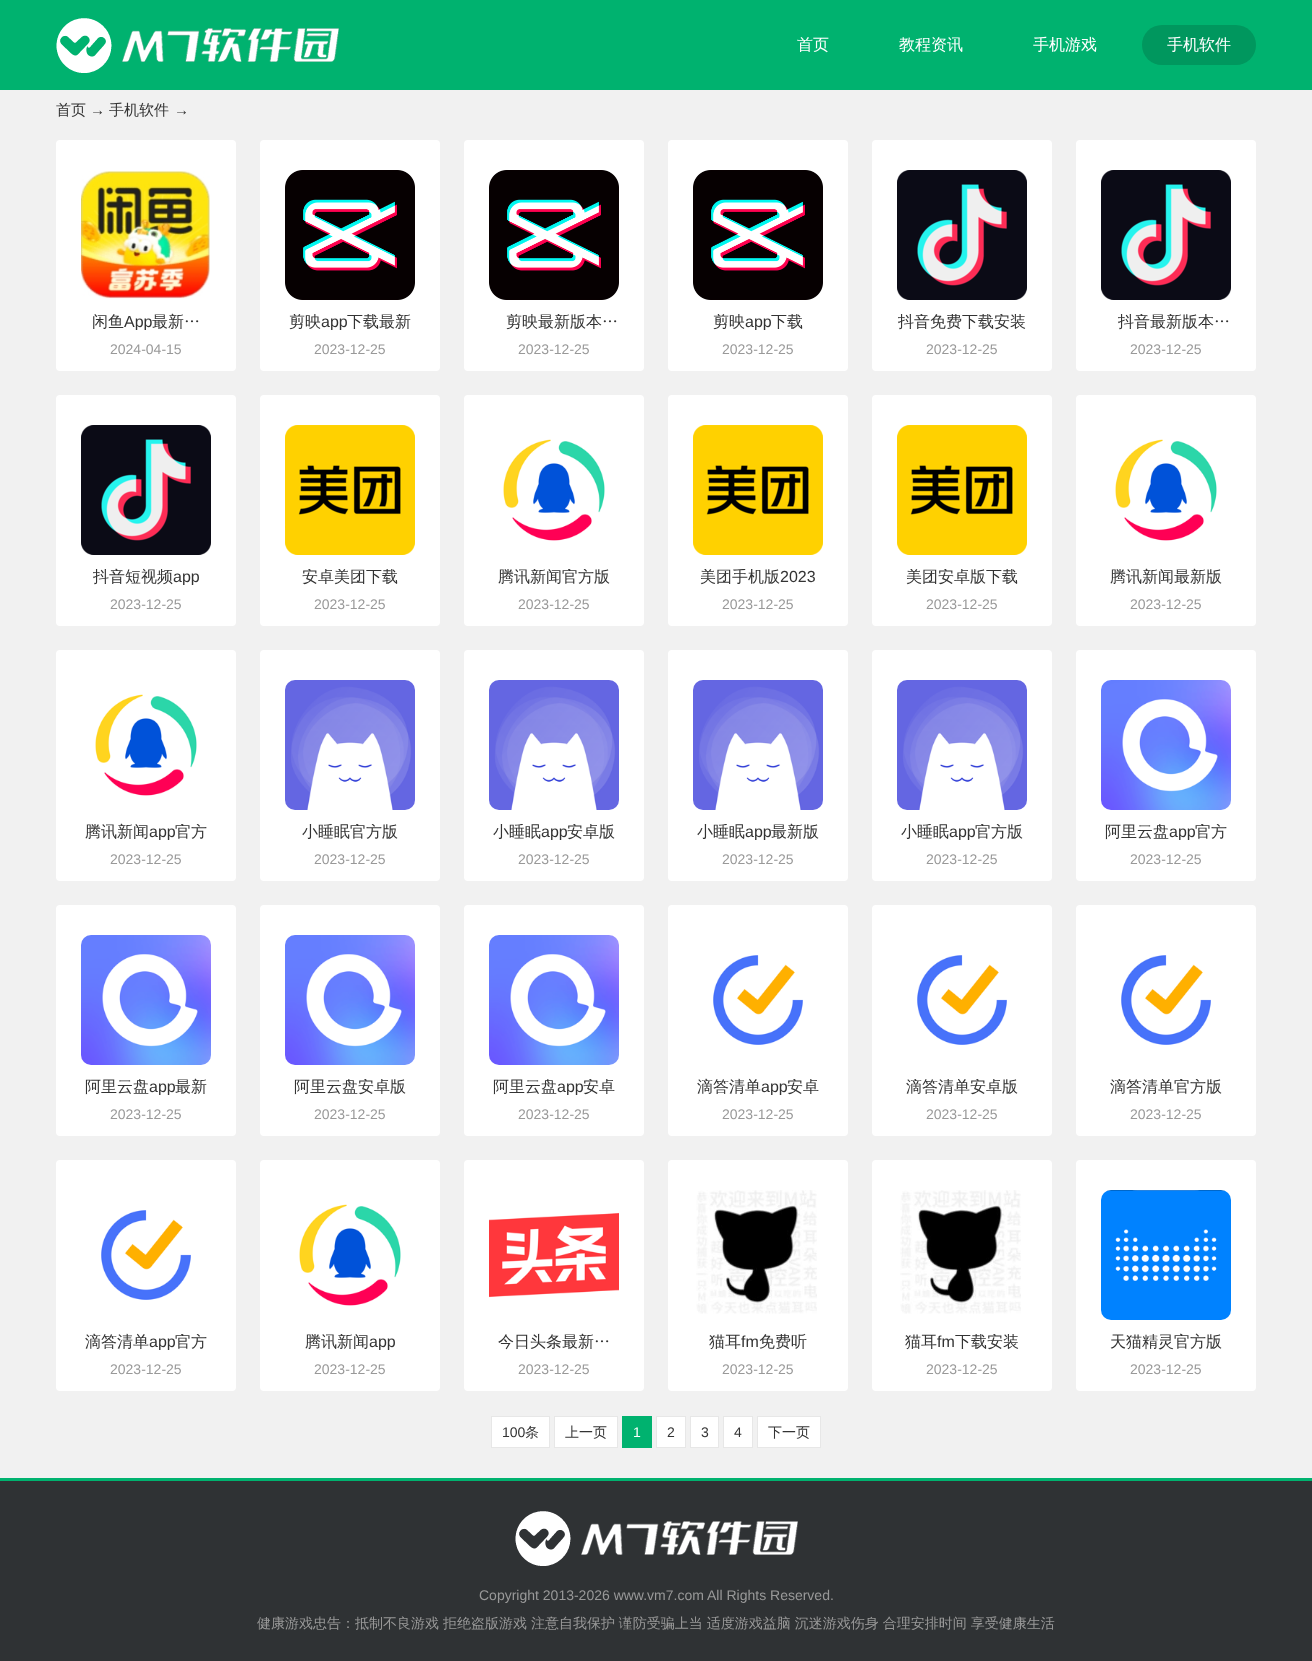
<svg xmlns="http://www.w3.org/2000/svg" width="1312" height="1661">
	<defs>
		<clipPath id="clip1"><rect x="81" y="314" width="130" height="16" /></clipPath>
		<clipPath id="clip2"><rect x="285" y="314" width="130" height="16" /></clipPath>
		<clipPath id="clip3"><rect x="489" y="314" width="130" height="16" /></clipPath>
		<clipPath id="clip4"><rect x="693" y="314" width="130" height="16" /></clipPath>
		<clipPath id="clip5"><rect x="897" y="314" width="130" height="16" /></clipPath>
		<clipPath id="clip6"><rect x="1101" y="314" width="130" height="16" /></clipPath>
		<clipPath id="clip7"><rect x="81" y="569" width="130" height="16" /></clipPath>
		<clipPath id="clip8"><rect x="285" y="569" width="130" height="16" /></clipPath>
		<clipPath id="clip9"><rect x="489" y="569" width="130" height="16" /></clipPath>
		<clipPath id="clip10"><rect x="693" y="569" width="130" height="16" /></clipPath>
		<clipPath id="clip11"><rect x="897" y="569" width="130" height="16" /></clipPath>
		<clipPath id="clip12"><rect x="81" y="824" width="130" height="16" /></clipPath>
		<clipPath id="clip13"><rect x="285" y="824" width="130" height="16" /></clipPath>
		<clipPath id="clip14"><rect x="489" y="824" width="130" height="16" /></clipPath>
		<clipPath id="clip15"><rect x="693" y="824" width="130" height="16" /></clipPath>
		<clipPath id="clip16"><rect x="897" y="824" width="130" height="16" /></clipPath>
		<clipPath id="clip17"><rect x="1101" y="824" width="130" height="16" /></clipPath>
		<clipPath id="clip18"><rect x="81" y="1079" width="130" height="16" /></clipPath>
		<clipPath id="clip19"><rect x="285" y="1079" width="130" height="16" /></clipPath>
		<clipPath id="clip20"><rect x="489" y="1079" width="130" height="16" /></clipPath>
		<clipPath id="clip21"><rect x="693" y="1079" width="130" height="16" /></clipPath>
		<clipPath id="clip22"><rect x="897" y="1079" width="130" height="16" /></clipPath>
		<clipPath id="clip23"><rect x="1101" y="1079" width="130" height="16" /></clipPath>
		<clipPath id="clip24"><rect x="81" y="1334" width="130" height="16" /></clipPath>
		<clipPath id="clip25"><rect x="285" y="1334" width="130" height="16" /></clipPath>
		<clipPath id="clip26"><rect x="897" y="1334" width="130" height="16" /></clipPath>
	</defs>
	<rect width="100%" height="100%" fill="#00B26F" />
	<image x="56" y="18" width="283" height="55" href="assets/img1.png" />
	<g font-family="WenQuanYi Zen Hei" font-size="16" font-weight="500" fill="#FFFFFF">
		<text x="797" y="50">首页</text>
		<text x="899" y="50">教程资讯</text>
		<text x="1033" y="50">手机游戏</text>
	</g>
	<rect x="1142" y="25" width="114" height="40" rx="20" fill="#00975E" />
	<text x="1167" y="50" font-family="WenQuanYi Zen Hei" font-size="16" font-weight="500" fill="#FFFFFF">手机软件</text>
	<rect x="0" y="90" width="1312" height="1388" fill="#F1F1F1" />
	<text x="56" y="115" font-family="WenQuanYi Zen Hei" font-size="15" font-weight="500" fill="#333333">首页</text>
	<text x="90" y="115" font-family="Liberation Sans" font-size="15" fill="#333333">→</text>
	<text x="109" y="115" font-family="WenQuanYi Zen Hei" font-size="15" font-weight="500" fill="#333333">手机软件</text>
	<text x="174" y="115" font-family="Liberation Sans" font-size="15" fill="#333333">→</text>
	<rect x="56" y="140" width="180" height="231" rx="4" fill="#FFFFFF" />
	<image x="81" y="171" width="129" height="128" href="assets/img2.png" />
	<text x="92" y="327" font-family="WenQuanYi Zen Hei" font-size="16" font-weight="500" fill="#333333">闲鱼</text>
	<g clip-path="url(#clip1)">
		<text x="124" y="327" font-family="Liberation Sans" font-size="16" fill="#333333">App</text>
	</g>
	<text x="152" y="327" font-family="WenQuanYi Zen Hei" font-size="16" font-weight="500" fill="#333333">最新…</text>
	<text x="110" y="354" font-family="Liberation Sans" font-size="14" fill="#999999">2024-04-15</text>
	<rect x="260" y="140" width="180" height="231" rx="4" fill="#FFFFFF" />
	<image x="285" y="170" width="130" height="130" href="assets/img3.png" />
	<g clip-path="url(#clip2)">
		<text x="289" y="327" font-family="WenQuanYi Zen Hei" font-size="16" font-weight="500" fill="#333333">剪映</text>
		<text x="321" y="327" font-family="Liberation Sans" font-size="16" fill="#333333">app</text>
		<text x="347" y="327" font-family="WenQuanYi Zen Hei" font-size="16" font-weight="500" fill="#333333">下载最新</text>
	</g>
	<text x="314" y="354" font-family="Liberation Sans" font-size="14" fill="#999999">2023-12-25</text>
	<rect x="464" y="140" width="180" height="231" rx="4" fill="#FFFFFF" />
	<image x="489" y="170" width="130" height="130" href="assets/img3.png" />
	<g clip-path="url(#clip3)">
		<text x="506" y="327" font-family="WenQuanYi Zen Hei" font-size="16" font-weight="500" fill="#333333">剪映最新版本…</text>
	</g>
	<text x="518" y="354" font-family="Liberation Sans" font-size="14" fill="#999999">2023-12-25</text>
	<rect x="668" y="140" width="180" height="231" rx="4" fill="#FFFFFF" />
	<image x="693" y="170" width="130" height="130" href="assets/img3.png" />
	<g clip-path="url(#clip4)">
		<text x="713" y="327" font-family="WenQuanYi Zen Hei" font-size="16" font-weight="500" fill="#333333">剪映</text>
		<text x="745" y="327" font-family="Liberation Sans" font-size="16" fill="#333333">app</text>
		<text x="771" y="327" font-family="WenQuanYi Zen Hei" font-size="16" font-weight="500" fill="#333333">下载</text>
	</g>
	<text x="722" y="354" font-family="Liberation Sans" font-size="14" fill="#999999">2023-12-25</text>
	<rect x="872" y="140" width="180" height="231" rx="4" fill="#FFFFFF" />
	<image x="897" y="170" width="130" height="130" href="assets/img4.png" />
	<g clip-path="url(#clip5)">
		<text x="898" y="327" font-family="WenQuanYi Zen Hei" font-size="16" font-weight="500" fill="#333333">抖音免费下载安装</text>
	</g>
	<text x="926" y="354" font-family="Liberation Sans" font-size="14" fill="#999999">2023-12-25</text>
	<rect x="1076" y="140" width="180" height="231" rx="4" fill="#FFFFFF" />
	<image x="1101" y="170" width="130" height="130" href="assets/img5.png" />
	<g clip-path="url(#clip6)">
		<text x="1118" y="327" font-family="WenQuanYi Zen Hei" font-size="16" font-weight="500" fill="#333333">抖音最新版本…</text>
	</g>
	<text x="1130" y="354" font-family="Liberation Sans" font-size="14" fill="#999999">2023-12-25</text>
	<rect x="56" y="395" width="180" height="231" rx="4" fill="#FFFFFF" />
	<image x="81" y="425" width="130" height="130" href="assets/img4.png" />
	<text x="93" y="582" font-family="WenQuanYi Zen Hei" font-size="16" font-weight="500" fill="#333333">抖音短视频</text>
	<g clip-path="url(#clip7)">
		<text x="173" y="582" font-family="Liberation Sans" font-size="16" fill="#333333">app</text>
	</g>
	<text x="110" y="609" font-family="Liberation Sans" font-size="14" fill="#999999">2023-12-25</text>
	<rect x="260" y="395" width="180" height="231" rx="4" fill="#FFFFFF" />
	<image x="285" y="425" width="130" height="130" href="assets/img6.png" />
	<g clip-path="url(#clip8)">
		<text x="302" y="582" font-family="WenQuanYi Zen Hei" font-size="16" font-weight="500" fill="#333333">安卓美团下载</text>
	</g>
	<text x="314" y="609" font-family="Liberation Sans" font-size="14" fill="#999999">2023-12-25</text>
	<rect x="464" y="395" width="180" height="231" rx="4" fill="#FFFFFF" />
	<image x="503" y="439" width="102" height="102" href="assets/img7.png" />
	<g clip-path="url(#clip9)">
		<text x="498" y="582" font-family="WenQuanYi Zen Hei" font-size="16" font-weight="500" fill="#333333">腾讯新闻官方版</text>
	</g>
	<text x="518" y="609" font-family="Liberation Sans" font-size="14" fill="#999999">2023-12-25</text>
	<rect x="668" y="395" width="180" height="231" rx="4" fill="#FFFFFF" />
	<image x="693" y="425" width="130" height="130" href="assets/img8.png" />
	<g clip-path="url(#clip10)">
		<text x="700" y="582" font-family="WenQuanYi Zen Hei" font-size="16" font-weight="500" fill="#333333">美团手机版</text>
	</g>
	<text x="780" y="582" font-family="Liberation Sans" font-size="16" fill="#333333">2023</text>
	<text x="722" y="609" font-family="Liberation Sans" font-size="14" fill="#999999">2023-12-25</text>
	<rect x="872" y="395" width="180" height="231" rx="4" fill="#FFFFFF" />
	<image x="897" y="425" width="130" height="130" href="assets/img8.png" />
	<g clip-path="url(#clip11)">
		<text x="906" y="582" font-family="WenQuanYi Zen Hei" font-size="16" font-weight="500" fill="#333333">美团安卓版下载</text>
	</g>
	<text x="926" y="609" font-family="Liberation Sans" font-size="14" fill="#999999">2023-12-25</text>
	<rect x="1076" y="395" width="180" height="231" rx="4" fill="#FFFFFF" />
	<image x="1115" y="439" width="102" height="102" href="assets/img9.png" />
	<text x="1110" y="582" font-family="WenQuanYi Zen Hei" font-size="16" font-weight="500" fill="#333333">腾讯新闻最新版</text>
	<text x="1130" y="609" font-family="Liberation Sans" font-size="14" fill="#999999">2023-12-25</text>
	<rect x="56" y="650" width="180" height="231" rx="4" fill="#FFFFFF" />
	<image x="95" y="694" width="102" height="102" href="assets/img10.png" />
	<text x="85" y="837" font-family="WenQuanYi Zen Hei" font-size="16" font-weight="500" fill="#333333">腾讯新闻</text>
	<g clip-path="url(#clip12)">
		<text x="149" y="837" font-family="Liberation Sans" font-size="16" fill="#333333">app</text>
		<text x="175" y="837" font-family="WenQuanYi Zen Hei" font-size="16" font-weight="500" fill="#333333">官方</text>
	</g>
	<text x="110" y="864" font-family="Liberation Sans" font-size="14" fill="#999999">2023-12-25</text>
	<rect x="260" y="650" width="180" height="231" rx="4" fill="#FFFFFF" />
	<image x="285" y="680" width="130" height="130" href="assets/img11.png" />
	<g clip-path="url(#clip13)">
		<text x="302" y="837" font-family="WenQuanYi Zen Hei" font-size="16" font-weight="500" fill="#333333">小睡眠官方版</text>
	</g>
	<text x="314" y="864" font-family="Liberation Sans" font-size="14" fill="#999999">2023-12-25</text>
	<rect x="464" y="650" width="180" height="231" rx="4" fill="#FFFFFF" />
	<image x="489" y="680" width="130" height="130" href="assets/img11.png" />
	<g clip-path="url(#clip14)">
		<text x="493" y="837" font-family="WenQuanYi Zen Hei" font-size="16" font-weight="500" fill="#333333">小睡眠</text>
		<text x="541" y="837" font-family="Liberation Sans" font-size="16" fill="#333333">app</text>
		<text x="567" y="837" font-family="WenQuanYi Zen Hei" font-size="16" font-weight="500" fill="#333333">安卓版</text>
	</g>
	<text x="518" y="864" font-family="Liberation Sans" font-size="14" fill="#999999">2023-12-25</text>
	<rect x="668" y="650" width="180" height="231" rx="4" fill="#FFFFFF" />
	<image x="693" y="680" width="130" height="130" href="assets/img12.png" />
	<g clip-path="url(#clip15)">
		<text x="697" y="837" font-family="WenQuanYi Zen Hei" font-size="16" font-weight="500" fill="#333333">小睡眠</text>
		<text x="745" y="837" font-family="Liberation Sans" font-size="16" fill="#333333">app</text>
	</g>
	<text x="771" y="837" font-family="WenQuanYi Zen Hei" font-size="16" font-weight="500" fill="#333333">最新版</text>
	<text x="722" y="864" font-family="Liberation Sans" font-size="14" fill="#999999">2023-12-25</text>
	<rect x="872" y="650" width="180" height="231" rx="4" fill="#FFFFFF" />
	<image x="897" y="680" width="130" height="130" href="assets/img13.png" />
	<g clip-path="url(#clip16)">
		<text x="901" y="837" font-family="WenQuanYi Zen Hei" font-size="16" font-weight="500" fill="#333333">小睡眠</text>
		<text x="949" y="837" font-family="Liberation Sans" font-size="16" fill="#333333">app</text>
		<text x="975" y="837" font-family="WenQuanYi Zen Hei" font-size="16" font-weight="500" fill="#333333">官方版</text>
	</g>
	<text x="926" y="864" font-family="Liberation Sans" font-size="14" fill="#999999">2023-12-25</text>
	<rect x="1076" y="650" width="180" height="231" rx="4" fill="#FFFFFF" />
	<image x="1101" y="680" width="130" height="130" href="assets/img14.png" />
	<text x="1105" y="837" font-family="WenQuanYi Zen Hei" font-size="16" font-weight="500" fill="#333333">阿里云盘</text>
	<g clip-path="url(#clip17)">
		<text x="1169" y="837" font-family="Liberation Sans" font-size="16" fill="#333333">app</text>
		<text x="1195" y="837" font-family="WenQuanYi Zen Hei" font-size="16" font-weight="500" fill="#333333">官方</text>
	</g>
	<text x="1130" y="864" font-family="Liberation Sans" font-size="14" fill="#999999">2023-12-25</text>
	<rect x="56" y="905" width="180" height="231" rx="4" fill="#FFFFFF" />
	<image x="81" y="935" width="130" height="130" href="assets/img15.png" />
	<text x="85" y="1092" font-family="WenQuanYi Zen Hei" font-size="16" font-weight="500" fill="#333333">阿里云盘</text>
	<g clip-path="url(#clip18)">
		<text x="149" y="1092" font-family="Liberation Sans" font-size="16" fill="#333333">app</text>
	</g>
	<text x="175" y="1092" font-family="WenQuanYi Zen Hei" font-size="16" font-weight="500" fill="#333333">最新</text>
	<text x="110" y="1119" font-family="Liberation Sans" font-size="14" fill="#999999">2023-12-25</text>
	<rect x="260" y="905" width="180" height="231" rx="4" fill="#FFFFFF" />
	<image x="285" y="935" width="130" height="130" href="assets/img16.png" />
	<g clip-path="url(#clip19)">
		<text x="294" y="1092" font-family="WenQuanYi Zen Hei" font-size="16" font-weight="500" fill="#333333">阿里云盘安卓版</text>
	</g>
	<text x="314" y="1119" font-family="Liberation Sans" font-size="14" fill="#999999">2023-12-25</text>
	<rect x="464" y="905" width="180" height="231" rx="4" fill="#FFFFFF" />
	<image x="489" y="935" width="130" height="130" href="assets/img16.png" />
	<text x="493" y="1092" font-family="WenQuanYi Zen Hei" font-size="16" font-weight="500" fill="#333333">阿里云盘</text>
	<g clip-path="url(#clip20)">
		<text x="557" y="1092" font-family="Liberation Sans" font-size="16" fill="#333333">app</text>
		<text x="583" y="1092" font-family="WenQuanYi Zen Hei" font-size="16" font-weight="500" fill="#333333">安卓</text>
	</g>
	<text x="518" y="1119" font-family="Liberation Sans" font-size="14" fill="#999999">2023-12-25</text>
	<rect x="668" y="905" width="180" height="231" rx="4" fill="#FFFFFF" />
	<image x="713" y="955" width="90" height="90" href="assets/img17.png" />
	<text x="697" y="1092" font-family="WenQuanYi Zen Hei" font-size="16" font-weight="500" fill="#333333">滴答清单</text>
	<g clip-path="url(#clip21)">
		<text x="761" y="1092" font-family="Liberation Sans" font-size="16" fill="#333333">app</text>
		<text x="787" y="1092" font-family="WenQuanYi Zen Hei" font-size="16" font-weight="500" fill="#333333">安卓</text>
	</g>
	<text x="722" y="1119" font-family="Liberation Sans" font-size="14" fill="#999999">2023-12-25</text>
	<rect x="872" y="905" width="180" height="231" rx="4" fill="#FFFFFF" />
	<image x="917" y="955" width="90" height="90" href="assets/img17.png" />
	<g clip-path="url(#clip22)">
		<text x="906" y="1092" font-family="WenQuanYi Zen Hei" font-size="16" font-weight="500" fill="#333333">滴答清单安卓版</text>
	</g>
	<text x="926" y="1119" font-family="Liberation Sans" font-size="14" fill="#999999">2023-12-25</text>
	<rect x="1076" y="905" width="180" height="231" rx="4" fill="#FFFFFF" />
	<image x="1121" y="955" width="90" height="90" href="assets/img17.png" />
	<g clip-path="url(#clip23)">
		<text x="1110" y="1092" font-family="WenQuanYi Zen Hei" font-size="16" font-weight="500" fill="#333333">滴答清单官方版</text>
	</g>
	<text x="1130" y="1119" font-family="Liberation Sans" font-size="14" fill="#999999">2023-12-25</text>
	<rect x="56" y="1160" width="180" height="231" rx="4" fill="#FFFFFF" />
	<image x="101" y="1210" width="90" height="90" href="assets/img17.png" />
	<text x="85" y="1347" font-family="WenQuanYi Zen Hei" font-size="16" font-weight="500" fill="#333333">滴答清单</text>
	<g clip-path="url(#clip24)">
		<text x="149" y="1347" font-family="Liberation Sans" font-size="16" fill="#333333">app</text>
		<text x="175" y="1347" font-family="WenQuanYi Zen Hei" font-size="16" font-weight="500" fill="#333333">官方</text>
	</g>
	<text x="110" y="1374" font-family="Liberation Sans" font-size="14" fill="#999999">2023-12-25</text>
	<rect x="260" y="1160" width="180" height="231" rx="4" fill="#FFFFFF" />
	<image x="299" y="1204" width="102" height="102" href="assets/img18.png" />
	<g clip-path="url(#clip25)">
		<text x="305" y="1347" font-family="WenQuanYi Zen Hei" font-size="16" font-weight="500" fill="#333333">腾讯新闻</text>
		<text x="369" y="1347" font-family="Liberation Sans" font-size="16" fill="#333333">app</text>
	</g>
	<text x="314" y="1374" font-family="Liberation Sans" font-size="14" fill="#999999">2023-12-25</text>
	<rect x="464" y="1160" width="180" height="231" rx="4" fill="#FFFFFF" />
	<image x="489" y="1212" width="130" height="86" href="assets/img19.png" />
	<text x="498" y="1347" font-family="WenQuanYi Zen Hei" font-size="16" font-weight="500" fill="#333333">今日头条最新…</text>
	<text x="518" y="1374" font-family="Liberation Sans" font-size="14" fill="#999999">2023-12-25</text>
	<rect x="668" y="1160" width="180" height="231" rx="4" fill="#FFFFFF" />
	<image x="696" y="1190" width="121" height="124" href="assets/img20.png" />
	<text x="709" y="1347" font-family="WenQuanYi Zen Hei" font-size="16" font-weight="500" fill="#333333">猫耳</text>
	<text x="741" y="1347" font-family="Liberation Sans" font-size="16" fill="#333333">fm</text>
	<text x="759" y="1347" font-family="WenQuanYi Zen Hei" font-size="16" font-weight="500" fill="#333333">免费听</text>
	<text x="722" y="1374" font-family="Liberation Sans" font-size="14" fill="#999999">2023-12-25</text>
	<rect x="872" y="1160" width="180" height="231" rx="4" fill="#FFFFFF" />
	<image x="900" y="1190" width="121" height="124" href="assets/img21.png" />
	<text x="905" y="1347" font-family="WenQuanYi Zen Hei" font-size="16" font-weight="500" fill="#333333">猫耳</text>
	<text x="937" y="1347" font-family="Liberation Sans" font-size="16" fill="#333333">fm</text>
	<g clip-path="url(#clip26)">
		<text x="955" y="1347" font-family="WenQuanYi Zen Hei" font-size="16" font-weight="500" fill="#333333">下载安装</text>
	</g>
	<text x="926" y="1374" font-family="Liberation Sans" font-size="14" fill="#999999">2023-12-25</text>
	<rect x="1076" y="1160" width="180" height="231" rx="4" fill="#FFFFFF" />
	<image x="1101" y="1190" width="130" height="130" href="assets/img22.png" />
	<text x="1110" y="1347" font-family="WenQuanYi Zen Hei" font-size="16" font-weight="500" fill="#333333">天猫精灵官方版</text>
	<text x="1130" y="1374" font-family="Liberation Sans" font-size="14" fill="#999999">2023-12-25</text>
	<rect x="491.5" y="1416.5" width="58" height="31" fill="#FFFFFF" stroke="#E7E7E7" />
	<text x="502" y="1437" font-family="Liberation Sans" font-size="14" fill="#333333">100</text>
	<text x="525" y="1437" font-family="WenQuanYi Zen Hei" font-size="14" font-weight="500" fill="#333333">条</text>
	<rect x="554.5" y="1416.5" width="63" height="31" fill="#FFFFFF" stroke="#E7E7E7" />
	<text x="565" y="1437" font-family="WenQuanYi Zen Hei" font-size="14" font-weight="500" fill="#333333">上一页</text>
	<rect x="622" y="1416" width="30" height="32" fill="#00B26F" />
	<text x="633" y="1437" font-family="Liberation Sans" font-size="14" fill="#FFFFFF">1</text>
	<rect x="656.5" y="1416.5" width="29" height="31" fill="#FFFFFF" stroke="#E7E7E7" />
	<text x="667" y="1437" font-family="Liberation Sans" font-size="14" fill="#333333">2</text>
	<rect x="690.5" y="1416.5" width="28" height="31" fill="#FFFFFF" stroke="#E7E7E7" />
	<text x="701" y="1437" font-family="Liberation Sans" font-size="14" fill="#333333">3</text>
	<rect x="723.5" y="1416.5" width="29" height="31" fill="#FFFFFF" stroke="#E7E7E7" />
	<text x="734" y="1437" font-family="Liberation Sans" font-size="14" fill="#333333">4</text>
	<rect x="757.5" y="1416.5" width="63" height="31" fill="#FFFFFF" stroke="#E7E7E7" />
	<text x="768" y="1437" font-family="WenQuanYi Zen Hei" font-size="14" font-weight="500" fill="#333333">下一页</text>
	<rect x="0" y="1481" width="1312" height="180" fill="#2F3234" />
	<image x="515" y="1511" width="283" height="55" href="assets/img23.png" />
	<text x="479" y="1600" font-family="Liberation Sans" font-size="14" fill="#999999">Copyright 2013-2026 www.vm7.com All Rights Reserved.</text>
	<text x="257" y="1628" word-spacing="-0.25" font-family="WenQuanYi Zen Hei" font-size="14" font-weight="500" fill="#999999">健康游戏忠告：抵制不良游戏 拒绝盗版游戏 注意自我保护 谨防受骗上当 适度游戏益脑 沉迷游戏伤身 合理安排时间 享受健康生活</text>
</svg>
